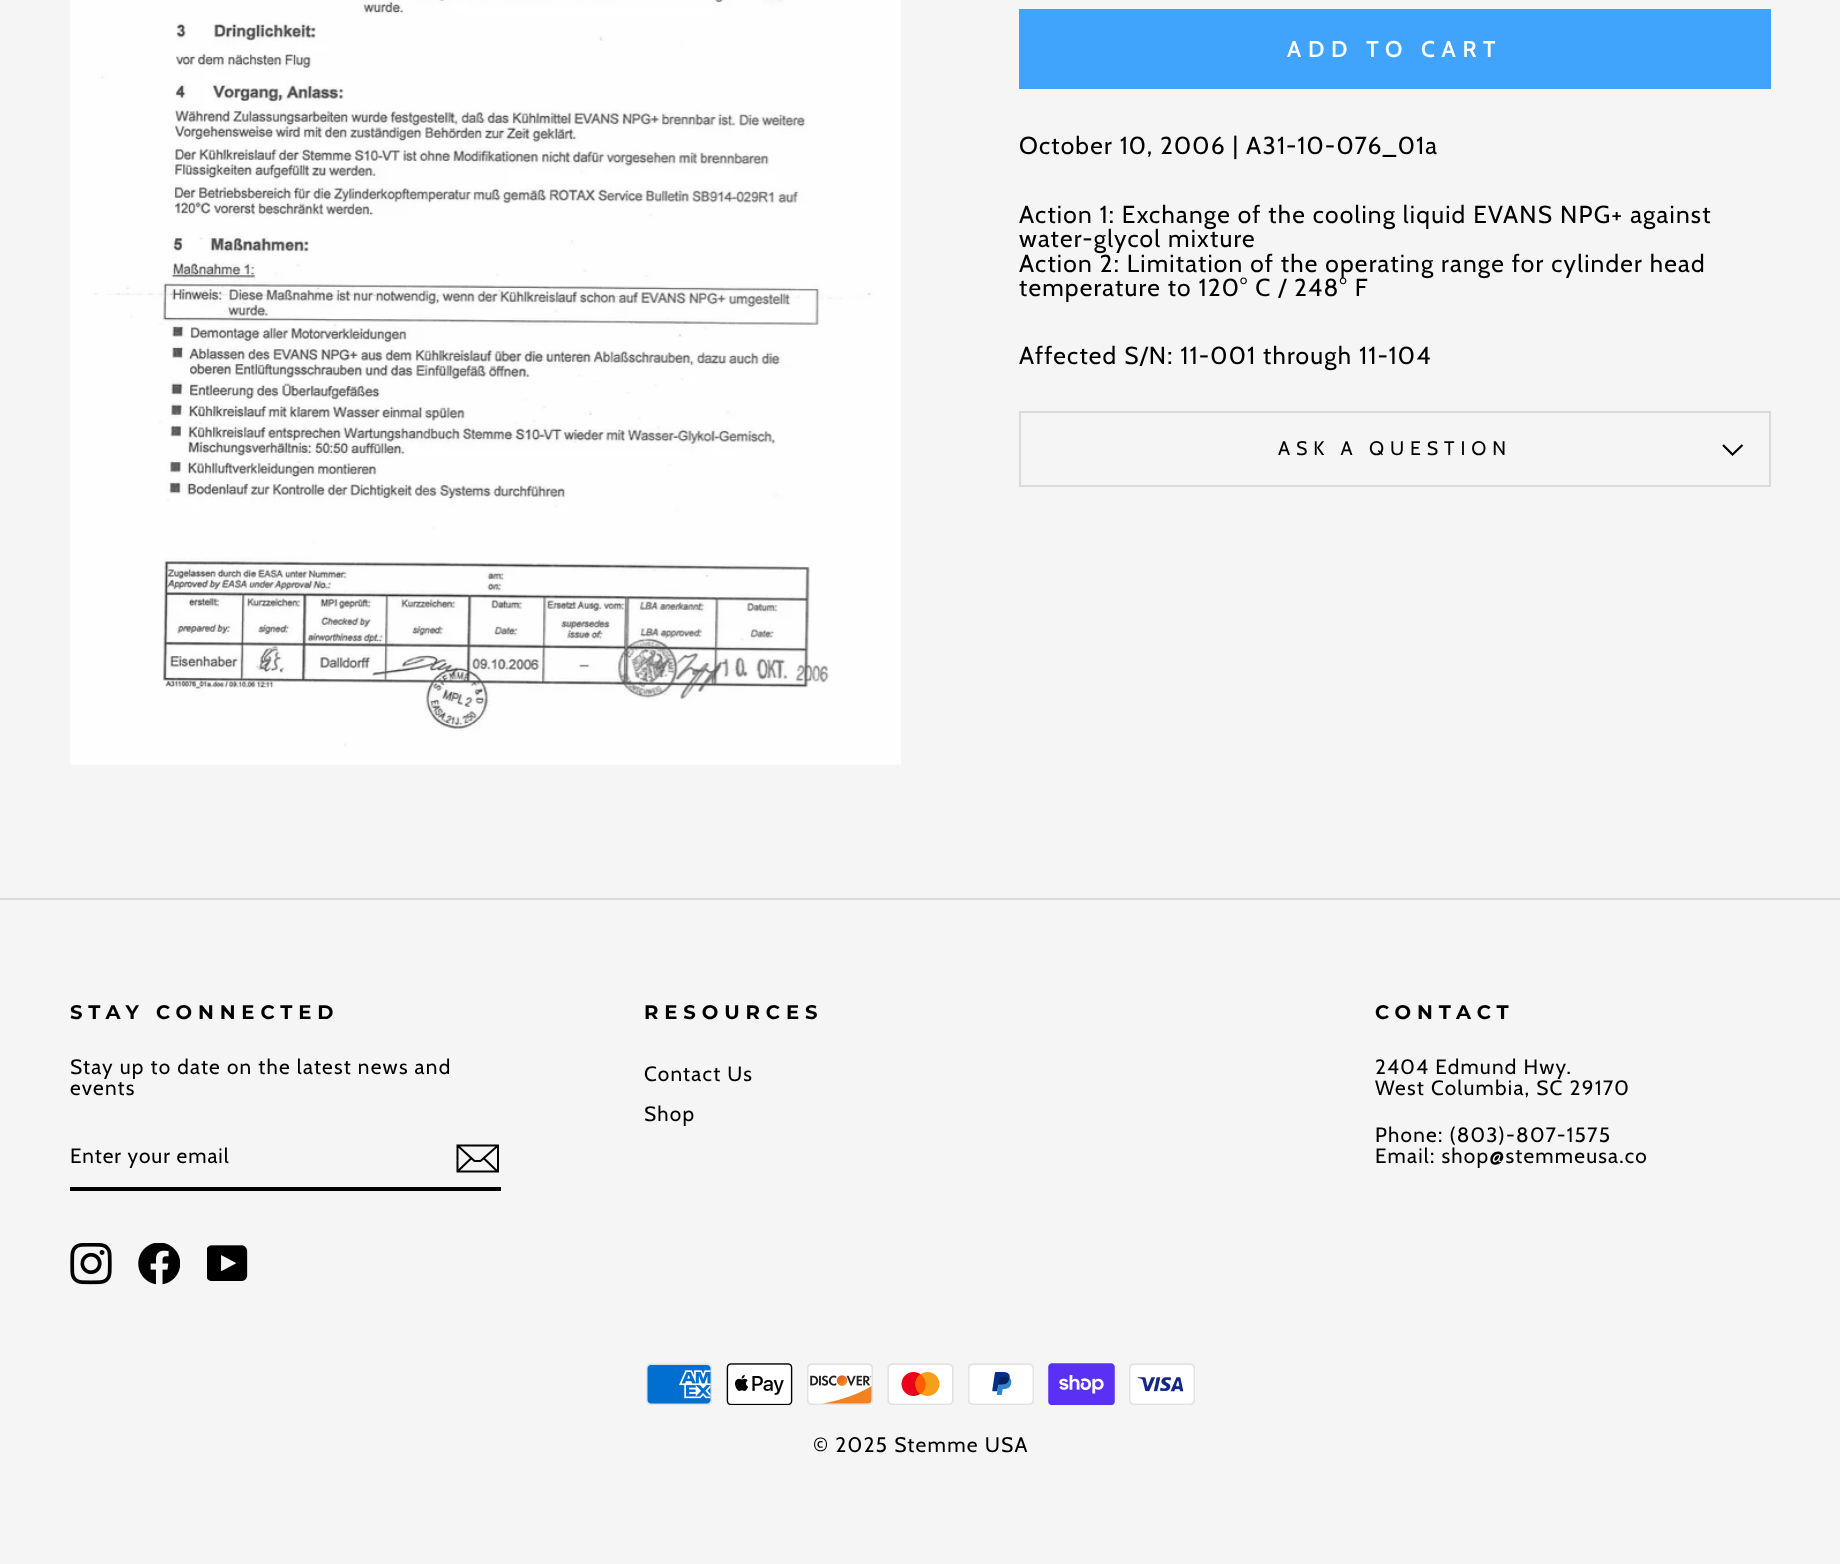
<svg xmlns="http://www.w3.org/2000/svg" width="1840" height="1564">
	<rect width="100%" height="100%" fill="#F5F5F5" />
	<image x="70" y="0" width="831" height="765" href="assets/img1.png" />
	<rect x="1019" y="9" width="752" height="80" fill="#41A4FC" />
	<text x="1287" y="57" font-family="Cabin" font-size="22.75" font-weight="600" letter-spacing="6.75" fill="#FFFFFF">ADD TO CART</text>
	<g font-family="Cabin" font-size="24.5" letter-spacing="1.22" fill="#000000">
		<text x="1019" y="154">October 10, 2006 | A31-10-076_01a</text>
		<text x="1019" y="223">Action 1: Exchange of the cooling liquid EVANS NPG+ against</text>
		<text x="1019" y="247">water-glycol mixture</text>
		<text x="1019" y="272">Action 2: Limitation of the operating range for cylinder head</text>
		<text x="1019" y="296">temperature to 120° C / 248° F</text>
		<text x="1019" y="364">Affected S/N: 11-001 through 11-104</text>
	</g>
	<rect x="1019" y="485" width="752" height="2" fill="#DADADA" />
	<rect x="1019" y="411" width="752" height="2" fill="#DADADA" />
	<rect x="1769" y="411" width="2" height="74" fill="#DADADA" />
	<rect x="1019" y="411" width="2" height="74" fill="#DADADA" />
	<text x="1278" y="455" font-family="Cabin" font-size="19.6" letter-spacing="5.9" fill="#000000">ASK A QUESTION</text>
	<path d="M1723 445L1732.5 454.5L1742.5 445" fill="none" stroke="#000000" stroke-width="2.2" />
	<rect x="0" y="898" width="1840" height="2" fill="#DADADA" />
	<text x="70" y="1019" font-family="Montserrat" font-size="19.6" font-weight="700" letter-spacing="5.9" fill="#000000">STAY CONNECTED</text>
	<g font-family="Cabin" font-size="20.8" letter-spacing="1.22" fill="#000000">
		<text x="70" y="1074">Stay up to date on the latest news and</text>
		<text x="70" y="1095">events</text>
	</g>
	<rect x="70" y="1187" width="431" height="4" fill="#000000" />
	<text x="70" y="1163" font-family="Cabin" font-size="20.8" letter-spacing="1" fill="#000000">Enter your email</text>
	<path d="M498 1171.5H457.5V1145.5H498ZM457.5 1145.5L474.5 1161H480.5L498 1145.5M471 1158.5L458 1171M497.5 1171.5L484 1158.5" fill="none" stroke="#000000" stroke-width="2" />
	<image x="70" y="1243" width="42" height="42" href="assets/img2.png" />
	<image x="138" y="1243" width="42" height="42" href="assets/img3.png" />
	<image x="207" y="1245" width="41" height="36" href="assets/img4.png" />
	<text x="644" y="1019" font-family="Montserrat" font-size="19.6" font-weight="700" letter-spacing="5.9" fill="#000000">RESOURCES</text>
	<g font-family="Cabin" font-size="20.8" letter-spacing="1.22" fill="#000000">
		<text x="644" y="1081">Contact Us</text>
		<text x="644" y="1121">Shop</text>
	</g>
	<text x="1375" y="1019" font-family="Montserrat" font-size="19.6" font-weight="700" letter-spacing="5.9" fill="#000000">CONTACT</text>
	<g font-family="Cabin" font-size="20.8" letter-spacing="1.22" fill="#000000">
		<text x="1375" y="1074">2404 Edmund Hwy.</text>
		<text x="1375" y="1095">West Columbia, SC 29170</text>
		<text x="1375" y="1142">Phone: (803)-807-1575</text>
		<text x="1375" y="1163">Email: shop@stemmeusa.co</text>
	</g>
	<image x="646" y="1363" width="66" height="42" href="assets/img5.png" />
	<image x="726" y="1363" width="67" height="42" href="assets/img6.png" />
	<image x="807" y="1363" width="66" height="42" href="assets/img7.png" />
	<image x="887" y="1363" width="67" height="42" href="assets/img8.png" />
	<image x="968" y="1363" width="66" height="42" href="assets/img9.png" />
	<image x="1048" y="1363" width="67" height="42" href="assets/img10.png" />
	<image x="1129" y="1363" width="66" height="42" href="assets/img11.png" />
	<text x="813" y="1452" font-family="Cabin" font-size="21" letter-spacing="1.22" fill="#000000">© 2025 Stemme USA</text>
</svg>
